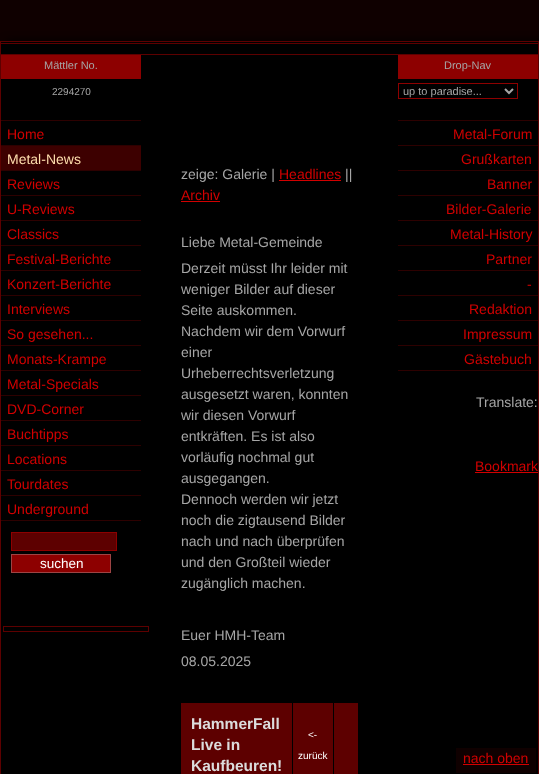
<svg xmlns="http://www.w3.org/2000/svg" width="539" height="774">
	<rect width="100%" height="100%" fill="#0F0000" />
	<rect x="6" y="41" width="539" height="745" fill="#000000" filter="blur(4px)" />
	<rect x="0.5" y="41.5" width="538" height="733" fill="#000000" stroke="#5D0000" />
	<rect x="1" y="43" width="537" height="1" fill="#5D0000" />
	<rect x="1" y="55" width="140" height="24" fill="#8D0000" />
	<rect x="1" y="54" width="140" height="1" fill="#5D0000" />
	<text x="44" y="69" font-family="Liberation Sans" font-size="11" fill="#A6A6A6">Mättler No.</text>
	<rect x="398" y="55" width="140" height="24" fill="#8D0000" />
	<rect x="141" y="54" width="397" height="1" fill="#5D0000" />
	<text x="444" y="69" font-family="Liberation Sans" font-size="11" fill="#A6A6A6">Drop-Nav</text>
	<text x="52" y="95" font-family="Liberation Sans" font-size="10" fill="#A6A6A6">2294270</text>
	<rect x="398.5" y="83.5" width="119" height="15" fill="none" stroke="#8D0000" />
	<path d="M505 89L509 93L513 89" fill="none" stroke="#A6A6A6" stroke-width="2" />
	<text x="403" y="95" font-family="Liberation Sans" font-size="11" fill="#A6A6A6">up to paradise...</text>
	<rect x="1" y="120" width="140" height="1" fill="#2D0000" />
	<rect x="1" y="145" width="140" height="1" fill="#2D0000" />
	<text x="7" y="139" font-family="Liberation Sans" font-size="14" fill="#D20000">Home</text>
	<rect x="1" y="146" width="140" height="24" fill="#3D0000" />
	<rect x="1" y="170" width="140" height="1" fill="#2D0000" />
	<text x="7" y="164" font-family="Liberation Sans" font-size="14" fill="#FFDEAD">Metal-News</text>
	<rect x="1" y="195" width="140" height="1" fill="#2D0000" />
	<text x="7" y="189" font-family="Liberation Sans" font-size="14" fill="#D20000">Reviews</text>
	<rect x="1" y="220" width="140" height="1" fill="#2D0000" />
	<text x="7" y="214" font-family="Liberation Sans" font-size="14" fill="#D20000">U-Reviews</text>
	<rect x="1" y="245" width="140" height="1" fill="#2D0000" />
	<text x="7" y="239" font-family="Liberation Sans" font-size="14" fill="#D20000">Classics</text>
	<rect x="1" y="270" width="140" height="1" fill="#2D0000" />
	<text x="7" y="264" font-family="Liberation Sans" font-size="14" fill="#D20000">Festival-Berichte</text>
	<rect x="1" y="295" width="140" height="1" fill="#2D0000" />
	<text x="7" y="289" font-family="Liberation Sans" font-size="14" fill="#D20000">Konzert-Berichte</text>
	<rect x="1" y="320" width="140" height="1" fill="#2D0000" />
	<text x="7" y="314" font-family="Liberation Sans" font-size="14" fill="#D20000">Interviews</text>
	<rect x="1" y="345" width="140" height="1" fill="#2D0000" />
	<text x="7" y="339" font-family="Liberation Sans" font-size="14" fill="#D20000">So gesehen...</text>
	<rect x="1" y="370" width="140" height="1" fill="#2D0000" />
	<text x="7" y="364" font-family="Liberation Sans" font-size="14" fill="#D20000">Monats-Krampe</text>
	<rect x="1" y="395" width="140" height="1" fill="#2D0000" />
	<text x="7" y="389" font-family="Liberation Sans" font-size="14" fill="#D20000">Metal-Specials</text>
	<rect x="1" y="420" width="140" height="1" fill="#2D0000" />
	<text x="7" y="414" font-family="Liberation Sans" font-size="14" fill="#D20000">DVD-Corner</text>
	<rect x="1" y="445" width="140" height="1" fill="#2D0000" />
	<text x="7" y="439" font-family="Liberation Sans" font-size="14" fill="#D20000">Buchtipps</text>
	<rect x="1" y="470" width="140" height="1" fill="#2D0000" />
	<text x="7" y="464" font-family="Liberation Sans" font-size="14" fill="#D20000">Locations</text>
	<rect x="1" y="495" width="140" height="1" fill="#2D0000" />
	<text x="7" y="489" font-family="Liberation Sans" font-size="14" fill="#D20000">Tourdates</text>
	<rect x="1" y="520" width="140" height="1" fill="#2D0000" />
	<text x="7" y="514" font-family="Liberation Sans" font-size="14" fill="#D20000">Underground</text>
	<rect x="11.5" y="532.5" width="105" height="18" fill="#5D0000" stroke="#8D0000" />
	<rect x="11.5" y="554.5" width="99" height="18" fill="#8D0000" stroke="#9D4444" />
	<text x="40" y="568" font-family="Liberation Sans" font-size="13.5" fill="#FFFFFF">suchen</text>
	<rect x="3.5" y="626.5" width="145" height="5" fill="none" stroke="#5D0000" />
	<text x="181" y="179" font-family="Liberation Sans" font-size="14" fill="#A6A6A6">zeige: Galerie |</text>
	<text x="279" y="179" font-family="Liberation Sans" font-size="14" fill="#D20000">Headlines</text>
	<rect x="279" y="180" width="62" height="1" fill="#D20000" />
	<text x="345" y="179" font-family="Liberation Sans" font-size="14" fill="#A6A6A6">||</text>
	<text x="181" y="200" font-family="Liberation Sans" font-size="14" fill="#D20000">Archiv</text>
	<rect x="181" y="201" width="39" height="1" fill="#D20000" />
	<g font-family="Liberation Sans" font-size="14" fill="#A6A6A6">
		<text x="181" y="247">Liebe Metal-Gemeinde</text>
		<text x="181" y="273">Derzeit müsst Ihr leider mit</text>
		<text x="181" y="294">weniger Bilder auf dieser</text>
		<text x="181" y="315">Seite auskommen.</text>
		<text x="181" y="336">Nachdem wir dem Vorwurf</text>
		<text x="181" y="357">einer</text>
		<text x="181" y="378">Urheberrechtsverletzung</text>
		<text x="181" y="399">ausgesetzt waren, konnten</text>
		<text x="181" y="420">wir diesen Vorwurf</text>
		<text x="181" y="441">entkräften. Es ist also</text>
		<text x="181" y="462">vorläufig nochmal gut</text>
		<text x="181" y="483">ausgegangen.</text>
		<text x="181" y="504">Dennoch werden wir jetzt</text>
		<text x="181" y="525">noch die zigtausend Bilder</text>
		<text x="181" y="546">nach und nach überprüfen</text>
		<text x="181" y="567">und den Großteil wieder</text>
		<text x="181" y="588">zugänglich machen.</text>
		<text x="181" y="640">Euer HMH-Team</text>
		<text x="181" y="666">08.05.2025</text>
	</g>
	<rect x="181" y="703" width="111" height="71" fill="#5D0000" />
	<g font-family="Liberation Sans" font-size="15.5" font-weight="700" fill="#DCDCDC">
		<text x="191" y="729">HammerFall</text>
		<text x="191" y="750">Live in</text>
		<text x="191" y="771">Kaufbeuren!</text>
	</g>
	<rect x="293" y="703" width="40" height="71" fill="#5D0000" />
	<g font-family="Liberation Sans" font-size="10" fill="#FFFFFF">
		<text x="308" y="738">&lt;-</text>
		<text x="298" y="759">zurück</text>
	</g>
	<rect x="334" y="703" width="24" height="71" fill="#5D0000" />
	<rect x="398" y="120" width="140" height="1" fill="#2D0000" />
	<rect x="398" y="145" width="140" height="1" fill="#2D0000" />
	<text x="453" y="139" font-family="Liberation Sans" font-size="14" fill="#D20000">Metal-Forum</text>
	<rect x="398" y="170" width="140" height="1" fill="#2D0000" />
	<text x="461" y="164" font-family="Liberation Sans" font-size="14" fill="#D20000">Grußkarten</text>
	<rect x="398" y="195" width="140" height="1" fill="#2D0000" />
	<text x="487" y="189" font-family="Liberation Sans" font-size="14" fill="#D20000">Banner</text>
	<rect x="398" y="220" width="140" height="1" fill="#2D0000" />
	<text x="446" y="214" font-family="Liberation Sans" font-size="14" fill="#D20000">Bilder-Galerie</text>
	<rect x="398" y="245" width="140" height="1" fill="#2D0000" />
	<text x="450" y="239" font-family="Liberation Sans" font-size="14" fill="#D20000">Metal-History</text>
	<rect x="398" y="270" width="140" height="1" fill="#2D0000" />
	<text x="486" y="264" font-family="Liberation Sans" font-size="14" fill="#D20000">Partner</text>
	<rect x="398" y="295" width="140" height="1" fill="#2D0000" />
	<text x="527" y="289" font-family="Liberation Sans" font-size="14" fill="#D20000">-</text>
	<rect x="398" y="320" width="140" height="1" fill="#2D0000" />
	<text x="469" y="314" font-family="Liberation Sans" font-size="14" fill="#D20000">Redaktion</text>
	<rect x="398" y="345" width="140" height="1" fill="#2D0000" />
	<text x="463" y="339" font-family="Liberation Sans" font-size="14" fill="#D20000">Impressum</text>
	<rect x="398" y="370" width="140" height="1" fill="#2D0000" />
	<text x="464" y="364" font-family="Liberation Sans" font-size="14" fill="#D20000">Gästebuch</text>
	<text x="476" y="407" font-family="Liberation Sans" font-size="14" fill="#A6A6A6">Translate:</text>
	<text x="475" y="471" font-family="Liberation Sans" font-size="14" fill="#D20000">Bookmark</text>
	<rect x="475" y="472" width="63" height="1" fill="#D20000" />
	<rect x="456" y="748" width="80" height="25" fill="#0F0000" />
	<text x="463" y="763" font-family="Liberation Sans" font-size="14" fill="#D20000">nach oben</text>
	<rect x="463" y="764" width="66" height="1" fill="#D20000" />
</svg>
